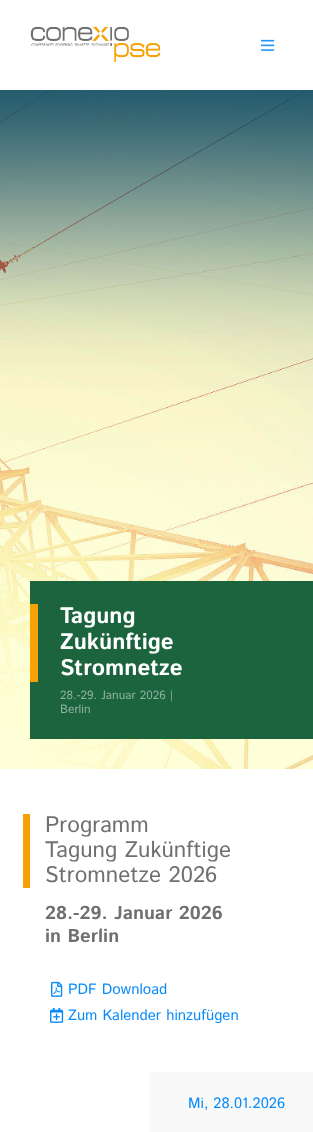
<svg xmlns="http://www.w3.org/2000/svg" width="313" height="1132">
	<rect width="100%" height="100%" fill="#FFFFFF" />
	<image x="30" y="26" width="131" height="36" href="assets/img1.png" />
	<image x="0" y="90" width="313" height="679" href="assets/img2.png" />
	<image x="261" y="39" width="14" height="12" href="assets/img3.png" />
	<rect x="30" y="581" width="283" height="158" fill="#1B643E" />
	<rect x="30" y="604" width="8" height="78" fill="#F6A204" />
	<g font-family="Istok Web" font-size="22.5" font-weight="700" fill="#FFFFFF">
		<text x="60" y="623">Tagung</text>
		<text x="60" y="649">Zukünftige</text>
		<text x="60" y="675">Stromnetze</text>
	</g>
	<g font-family="Istok Web" font-size="12" fill="#8DB29F">
		<text x="60" y="699">28.-29. Januar 2026 |</text>
		<text x="60" y="713">Berlin</text>
	</g>
	<rect x="23" y="814" width="7" height="74" fill="#F6A204" />
	<g font-family="Istok Web" font-size="22.5" fill="#716F70">
		<text x="45" y="832">Programm</text>
		<text x="45" y="857">Tagung Zukünftige</text>
		<text x="45" y="882">Stromnetze 2026</text>
	</g>
	<g font-family="Istok Web" font-size="18.75" font-weight="700" fill="#716F70">
		<text x="45" y="919">28.-29. Januar 2026</text>
		<text x="45" y="942">in Berlin</text>
	</g>
	<image x="51" y="981" width="12" height="16" href="assets/img4.png" />
	<text x="68" y="994" font-family="Istok Web" font-size="15" fill="#0A8BFA">PDF Download</text>
	<image x="50" y="1007" width="14" height="16" href="assets/img5.png" />
	<text x="68" y="1020" font-family="Istok Web" font-size="15" fill="#0A8BFA">Zum Kalender hinzufügen</text>
	<rect x="150" y="1072" width="163" height="60" fill="#F9F9F9" />
	<text x="188" y="1108" font-family="Istok Web" font-size="15" fill="#0A8BFA">Mi, 28.01.2026</text>
</svg>
